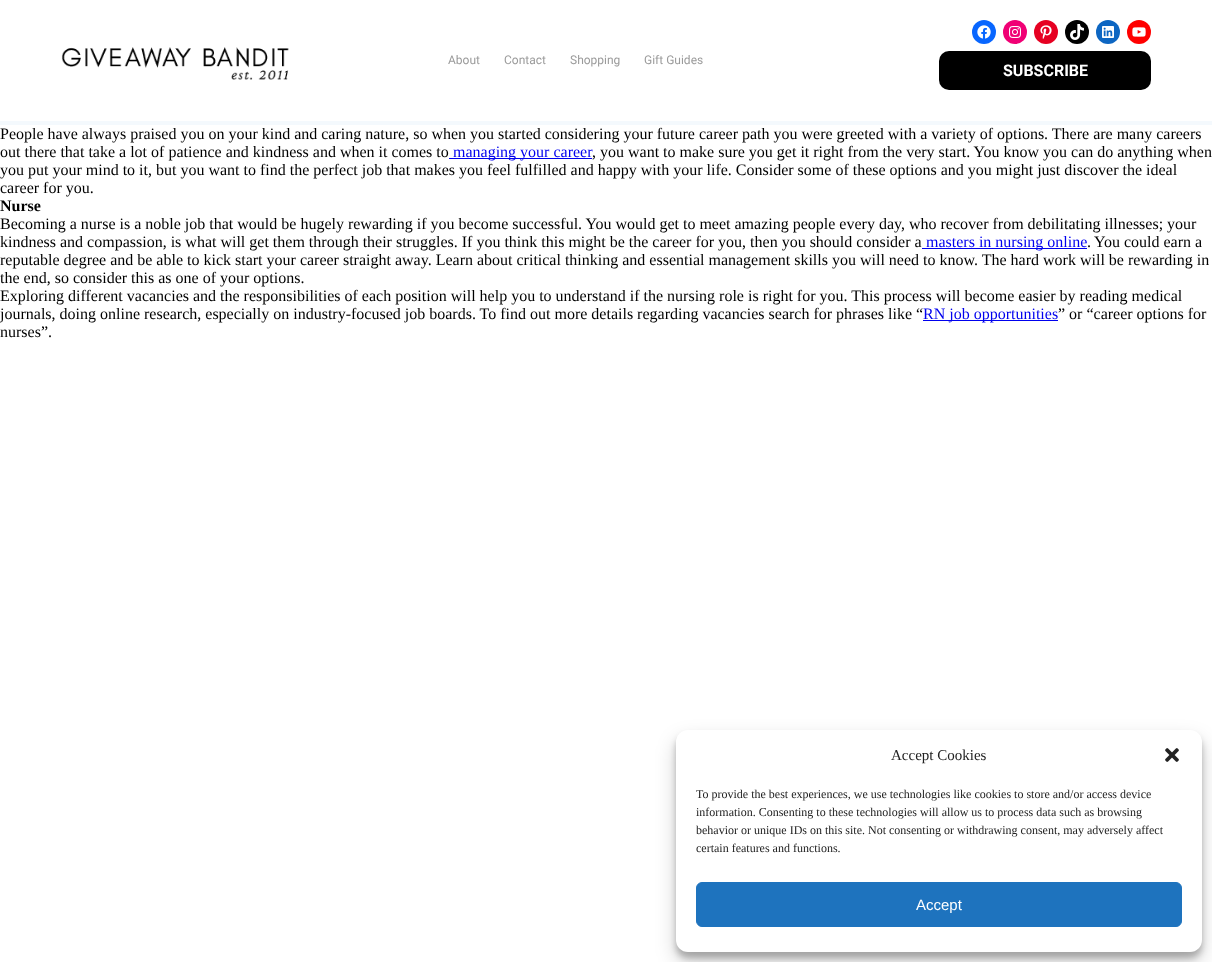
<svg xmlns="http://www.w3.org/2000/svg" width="1212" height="962">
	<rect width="100%" height="100%" fill="#FFFFFF" />
	<image x="61" y="47" width="228" height="33" href="assets/img1.png" />
	<g font-family="Roboto" font-size="12" fill="#9B9B9B">
		<text x="448" y="64">About</text>
		<text x="504" y="64">Contact</text>
		<text x="570" y="64">Shopping</text>
		<text x="644" y="64">Gift Guides</text>
	</g>
	<circle cx="984" cy="32" r="12" fill="#0866FF" />
	<image x="977" y="25" width="14" height="14" href="assets/img2.png" />
	<circle cx="1015" cy="32" r="12" fill="#F00075" />
	<image x="1009" y="26" width="12" height="12" href="assets/img3.png" />
	<circle cx="1046" cy="32" r="12" fill="#E60122" />
	<image x="1040" y="25" width="12" height="14" href="assets/img4.png" />
	<circle cx="1077" cy="32" r="12" fill="#000000" />
	<image x="1070" y="24" width="14" height="16" href="assets/img5.png" />
	<circle cx="1108" cy="32" r="12" fill="#0D66C2" />
	<image x="1102" y="26" width="12" height="12" href="assets/img6.png" />
	<circle cx="1139" cy="32" r="12" fill="#FF0000" />
	<image x="1132" y="27" width="14" height="10" href="assets/img7.png" />
	<rect x="939" y="51" width="212" height="39" rx="10" fill="#000000" />
	<text x="1003" y="76" font-family="Roboto" font-size="16" font-weight="700" fill="#FFFFFF">SUBSCRIBE</text>
	<rect x="0" y="121" width="1212" height="4" fill="#F4F9FD" />
	<g font-family="Liberation Serif" font-size="16" fill="#000000">
		<text x="0" y="139">People have always praised you on your kind and caring nature, so when you started considering your future career path you were greeted with a variety of options. There are many careers</text>
		<text x="0" y="157">out there that take a lot of patience and kindness and when it comes to</text>
	</g>
	<rect x="449" y="158" width="143" height="1" fill="#0000EE" />
	<text x="453" y="157" font-family="Liberation Serif" font-size="16" fill="#0000EE">managing your career</text>
	<g font-family="Liberation Serif" font-size="16" fill="#000000">
		<text x="592" y="157">, you want to make sure you get it right from the very start. You know you can do anything when</text>
		<text x="0" y="175">you put your mind to it, but you want to find the perfect job that makes you feel fulfilled and happy with your life. Consider some of these options and you might just discover the ideal</text>
		<text x="0" y="193">career for you.</text>
	</g>
	<text x="0" y="211" font-family="Liberation Serif" font-size="16" font-weight="700" fill="#000000">Nurse</text>
	<g font-family="Liberation Serif" font-size="16" fill="#000000">
		<text x="0" y="229">Becoming a nurse is a noble job that would be hugely rewarding if you become successful. You would get to meet amazing people every day, who recover from debilitating illnesses; your</text>
		<text x="0" y="247">kindness and compassion, is what will get them through their struggles. If you think this might be the career for you, then you should consider a</text>
	</g>
	<rect x="922" y="248" width="165" height="1" fill="#0000EE" />
	<text x="926" y="247" font-family="Liberation Serif" font-size="16" fill="#0000EE">masters in nursing online</text>
	<g font-family="Liberation Serif" font-size="16" fill="#000000">
		<text x="1087" y="247">.</text>
		<text x="1094" y="247">You could earn a</text>
		<text x="0" y="265">reputable degree and be able to kick start your career straight away. Learn about critical thinking and essential management skills you will need to know. The hard work will be rewarding in</text>
		<text x="0" y="283">the end, so consider this as one of your options.</text>
		<text x="0" y="301">Exploring different vacancies and the responsibilities of each position will help you to understand if the nursing role is right for you. This process will become easier by reading medical</text>
		<text x="0" y="319">journals, doing online research, especially on industry-focused job boards. To find out more details regarding vacancies search for phrases like “</text>
	</g>
	<rect x="923" y="320" width="135" height="1" fill="#0000EE" />
	<text x="923" y="319" font-family="Liberation Serif" font-size="16" fill="#0000EE">RN job opportunities</text>
	<g font-family="Liberation Serif" font-size="16" fill="#000000">
		<text x="1058" y="319">” or “career options for</text>
		<text x="0" y="337">nurses”.</text>
	</g>
	<rect x="676" y="736" width="526" height="222" rx="12" fill="#000000" fill-opacity="0.23" filter="blur(3px)" />
	<rect x="676" y="740" width="526" height="222" rx="12" fill="#000000" fill-opacity="0.19" filter="blur(10px)" />
	<rect x="676" y="730" width="526" height="222" rx="12" fill="#FFFFFF" />
	<text x="891" y="760" font-family="Liberation Serif" font-size="15" fill="#222222">Accept Cookies</text>
	<image x="1165" y="748" width="14" height="14" href="assets/img8.png" />
	<g font-family="Liberation Serif" font-size="12" fill="#222222">
		<text x="696" y="798">To provide the best experiences, we use technologies like cookies to store and/or access device</text>
		<text x="696" y="816">information. Consenting to these technologies will allow us to process data such as browsing</text>
		<text x="696" y="834">behavior or unique IDs on this site. Not consenting or withdrawing consent, may adversely affect</text>
		<text x="696" y="852">certain features and functions.</text>
	</g>
	<rect x="696.5" y="882.5" width="485" height="44" rx="5.5" fill="#1E73BE" stroke="#1E73BE" />
	<text x="916" y="910" font-family="Liberation Sans" font-size="15" fill="#FFFFFF">Accept</text>
</svg>
